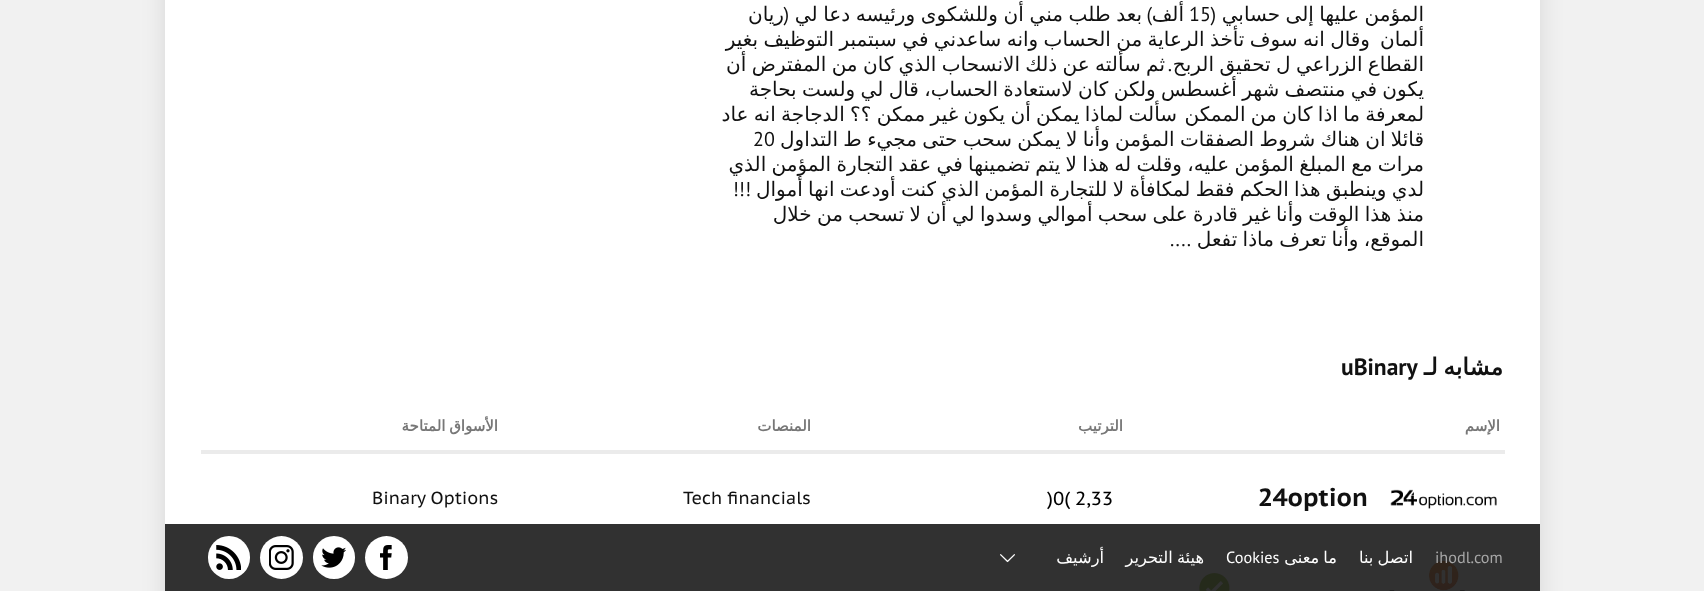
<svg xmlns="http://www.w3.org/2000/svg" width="1704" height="591">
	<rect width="100%" height="100%" fill="#F1F1F1" />
	<rect x="165" y="-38" width="1375" height="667" fill="#000000" fill-opacity="0.1" filter="blur(12.5px)" />
	<rect x="165" y="0" width="1375" height="524" fill="#FFFFFF" />
	<rect x="165" y="524" width="1375" height="67" fill="#313131" />
	<text x="1424" y="21" word-spacing="-1" font-family="DejaVu Sans" font-size="20" direction="rtl" fill="#111111">المؤمن عليها إلى حسابي</text>
	<text x="1216" y="21" font-family="PT Sans" font-size="20" direction="rtl" fill="#111111">(</text>
	<text x="1189" y="21" font-family="PT Sans" font-size="20" fill="#111111">15</text>
	<text x="1184" y="21" font-family="DejaVu Sans" font-size="20" direction="rtl" fill="#111111">ألف</text>
	<text x="1152" y="21" font-family="PT Sans" font-size="20" direction="rtl" fill="#111111">)</text>
	<text x="1142" y="21" word-spacing="-0.75" font-family="DejaVu Sans" font-size="20" direction="rtl" fill="#111111">بعد طلب مني أن وللشكوى ورئيسه دعا لي</text>
	<text x="789" y="21" font-family="PT Sans" font-size="20" direction="rtl" fill="#111111">(</text>
	<g font-family="DejaVu Sans" font-size="20" direction="rtl" fill="#111111">
		<text x="784" y="21">ريان</text>
		<text x="1424" y="46">ألمان</text>
		<text x="1370" y="46" word-spacing="-1">وقال انه سوف تأخذ الرعاية من الحساب وانه ساعدني في سبتمبر التوظيف بغير</text>
		<text x="1165" y="71" word-spacing="-1">ثم سألته عن ذلك الانسحاب الذي كان من المفترض أن</text>
		<text x="1424" y="71" word-spacing="-1">القطاع الزراعي ل تحقيق الربح</text>
	</g>
	<text x="1172" y="71" font-family="PT Sans" font-size="20" direction="rtl" fill="#111111">.</text>
	<g font-family="DejaVu Sans" font-size="20" direction="rtl" fill="#111111">
		<text x="1424" y="96" word-spacing="-1">يكون في منتصف شهر أغسطس ولكن كان لاستعادة الحساب، قال لي ولست بحاجة</text>
		<text x="1424" y="121" word-spacing="-1">لمعرفة ما اذا كان من الممكن</text>
		<text x="1177" y="121" word-spacing="-1">سألت لماذا يمكن أن يكون غير ممكن ؟؟ الدجاجة انه عاد</text>
		<text x="1424" y="146" word-spacing="-1">قائلا ان هناك شروط الصفقات المؤمن وأنا لا يمكن سحب حتى مجيء ط التداول</text>
	</g>
	<text x="753" y="146" font-family="PT Sans" font-size="20" fill="#111111">20</text>
	<g font-family="DejaVu Sans" font-size="20" direction="rtl" fill="#111111">
		<text x="1424" y="171" word-spacing="-1">مرات مع المبلغ المؤمن عليه، وقلت له هذا لا يتم تضمينها في عقد التجارة المؤمن الذي</text>
		<text x="1424" y="196" word-spacing="-1">لدي وينطبق هذا الحكم فقط لمكافأة لا للتجارة المؤمن الذي كنت أودعت انها أموال</text>
	</g>
	<text x="751" y="196" font-family="PT Sans" font-size="20" direction="rtl" fill="#111111">!!!</text>
	<g font-family="DejaVu Sans" font-size="20" direction="rtl" fill="#111111">
		<text x="1424" y="221" word-spacing="-1">منذ هذا الوقت وأنا غير قادرة على سحب أموالي وسدوا لي أن لا تسحب من خلال</text>
		<text x="1424" y="246" word-spacing="-1">الموقع، وأنا تعرف ماذا تفعل</text>
	</g>
	<text x="1191" y="246" font-family="PT Sans" font-size="20" direction="rtl" fill="#111111">....</text>
	<text x="1503" y="375" word-spacing="-2" font-family="DejaVu Sans" font-size="23.5" font-weight="700" direction="rtl" fill="#111111">مشابه لـ</text>
	<text x="1341" y="375" font-family="PT Sans" font-size="23.5" font-weight="700" fill="#111111">uBinary</text>
	<g font-family="DejaVu Sans" font-size="15" font-weight="700" direction="rtl" fill="#777777">
		<text x="1500" y="431">الإسم</text>
		<text x="1123" y="431">الترتيب</text>
		<text x="811" y="431">المنصات</text>
	</g>
	<rect x="201" y="450" width="1304" height="4" fill="#EBEBEB" />
	<text x="498" y="431" word-spacing="-1" font-family="DejaVu Sans" font-size="15" font-weight="700" direction="rtl" fill="#777777">الأسواق المتاحة</text>
	<image x="1390" y="489" width="107" height="20" href="assets/img1.png" />
	<text x="1258" y="506" font-family="PT Sans Caption" font-size="25" font-weight="700" fill="#111111">24option</text>
	<g font-family="PT Sans Caption" font-size="19" fill="#000000">
		<text x="1075" y="505">2,33</text>
		<text x="1047" y="505">)0(</text>
	</g>
	<g font-family="PT Sans Caption" font-size="17.5" fill="#111111">
		<text x="683" y="504">Tech financials</text>
		<text x="372" y="504">Binary Options</text>
	</g>
	<image x="1389" y="561" width="76" height="30" href="assets/img2.png" />
	<image x="1199" y="573" width="31" height="18" href="assets/img3.png" />
	<text x="1435" y="563" font-family="PT Sans" font-size="16.25" fill="#A7A7A7">ihodl.com</text>
	<g font-family="DejaVu Sans" font-size="16.25" direction="rtl" fill="#FFFFFF">
		<text x="1413" y="563" word-spacing="-1">اتصل بنا</text>
		<text x="1337" y="563" word-spacing="-1">ما معنى</text>
	</g>
	<text x="1226" y="563" font-family="PT Sans" font-size="16.25" fill="#FFFFFF">Cookies</text>
	<g font-family="DejaVu Sans" font-size="16.25" direction="rtl" fill="#FFFFFF">
		<text x="1204" y="563" word-spacing="-1">هيئة التحرير</text>
		<text x="1104" y="563">أرشيف</text>
	</g>
	<image x="1000" y="554" width="15" height="9" href="assets/img4.png" />
	<circle cx="386.5" cy="557.5" r="21.5" fill="#FFFFFF" />
	<image x="380" y="545" width="12" height="25" href="assets/img5.png" />
	<rect x="313" y="536" width="42" height="43" rx="21" fill="#FFFFFF" />
	<image x="321" y="547" width="25" height="21" href="assets/img6.png" />
	<circle cx="281.5" cy="557.5" r="21.5" fill="#FFFFFF" />
	<image x="269" y="545" width="25" height="25" href="assets/img7.png" />
	<rect x="208" y="536" width="42" height="43" rx="21" fill="#FFFFFF" />
	<image x="216" y="545" width="25" height="25" href="assets/img8.png" />
</svg>
